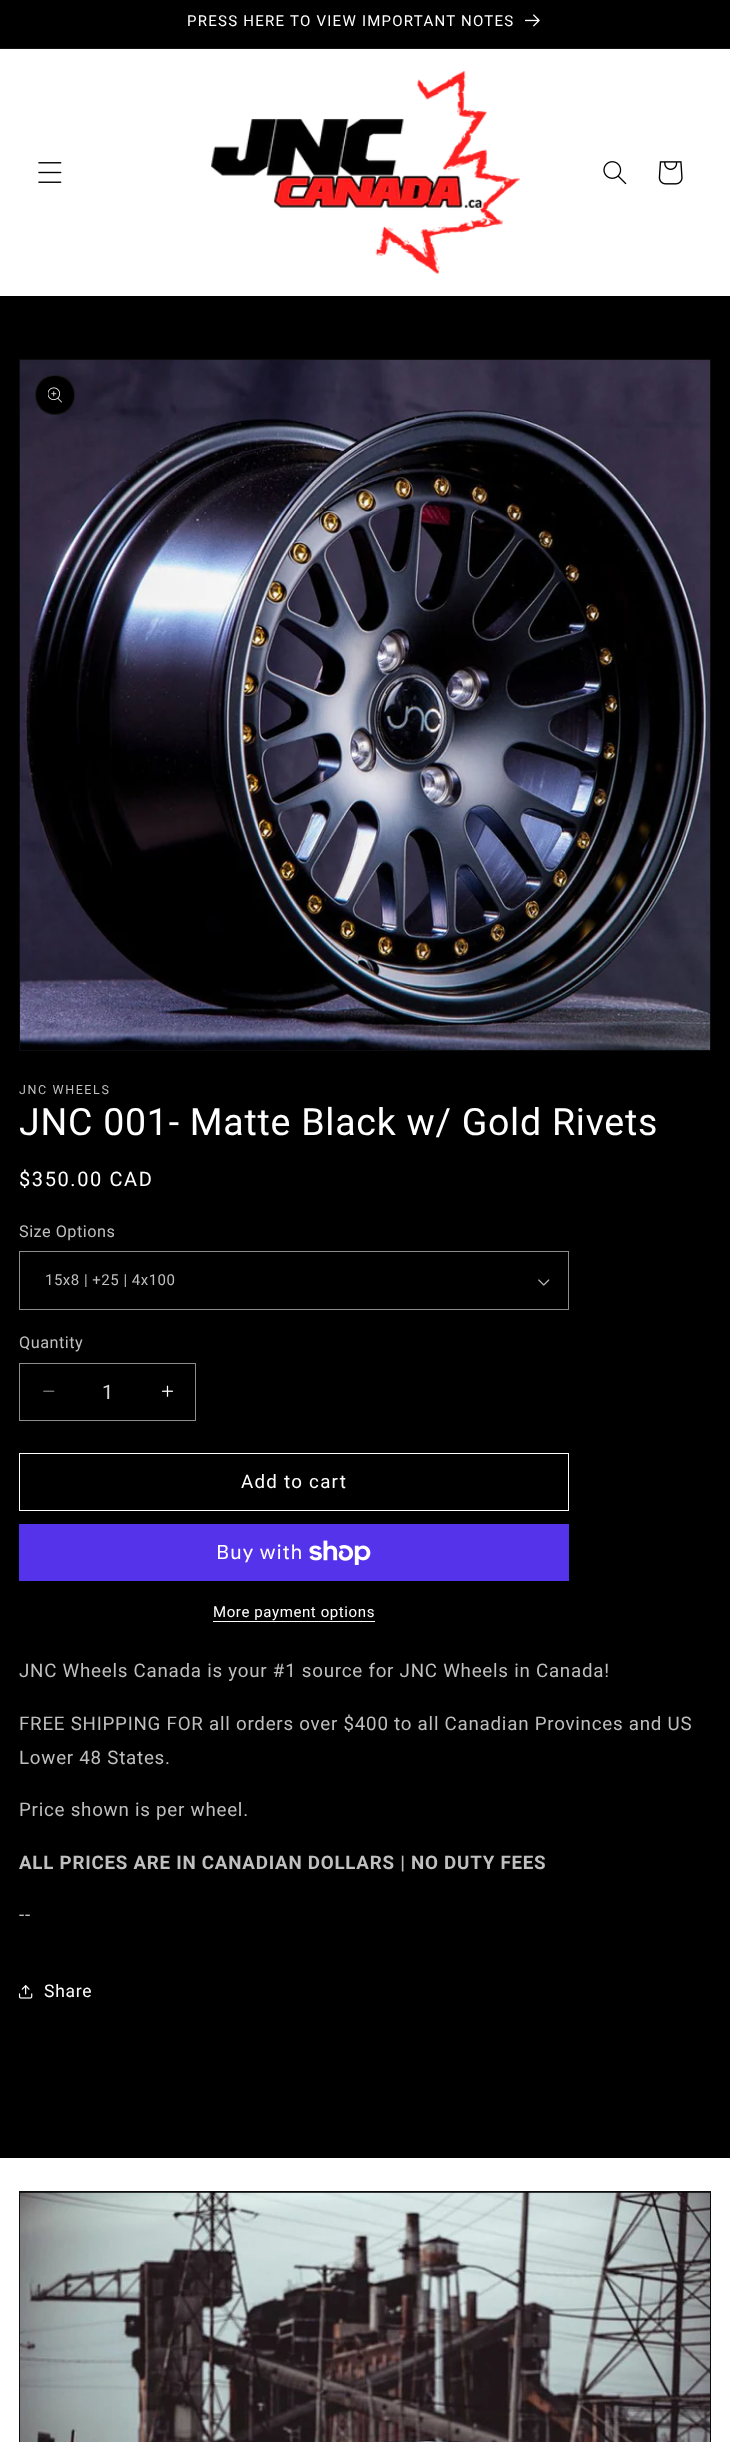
<svg xmlns="http://www.w3.org/2000/svg" width="730" height="2442">
	<rect width="100%" height="100%" fill="#FFFFFF" />
	<rect x="0" y="0" width="730" height="48" fill="#000000" />
	<rect x="0" y="48" width="730" height="1" fill="#141414" />
	<text x="187" y="26" font-family="Roboto" font-size="15" letter-spacing="1.25" fill="#FFFFFF">PRESS HERE TO VIEW IMPORTANT NOTES</text>
	<image x="525" y="14" width="15" height="13" href="assets/img1.png" />
	<image x="38" y="162" width="24" height="21" href="assets/img2.png" />
	<image x="211" y="71" width="309" height="203" href="assets/img3.png" />
	<image x="603" y="161" width="24" height="24" href="assets/img4.png" />
	<image x="658" y="161" width="25" height="24" href="assets/img5.png" />
	<rect x="0" y="296" width="730" height="1862" fill="#000000" />
	<rect x="19.5" y="359.5" width="691" height="691" fill="none" stroke="#0D0D0D" />
	<image x="20" y="360" width="690" height="690" href="assets/img6.png" />
	<circle cx="55" cy="395" r="20" fill="#000000" />
	<circle cx="55" cy="395" r="19.5" fill="none" stroke="#FFFFFF" stroke-opacity="0.1" />
	<image x="48" y="387" width="14" height="16" href="assets/img7.png" />
	<text x="19" y="1094" font-family="Roboto" font-size="12.5" letter-spacing="1.6" fill="#BFBFBF">JNC WHEELS</text>
	<text x="19" y="1135" font-family="Roboto" font-size="37.5" letter-spacing="0.75" fill="#FFFFFF">JNC 001- Matte Black w/ Gold Rivets</text>
	<text x="19" y="1186" font-family="Roboto" font-size="20" letter-spacing="1.6" fill="#FFFFFF">$350.00 CAD</text>
	<text x="19" y="1237" font-family="Roboto" font-size="16.25" letter-spacing="0.5" fill="#BFBFBF">Size Options</text>
	<image x="538" y="1279" width="12" height="7" href="assets/img8.png" />
	<rect x="19.5" y="1251.5" width="549" height="58" fill="none" stroke="#8C8C8C" />
	<text x="45" y="1285" font-family="Roboto" font-size="15" letter-spacing="0.5" fill="#BFBFBF">15x8 | +25 | 4x100</text>
	<text x="19" y="1348" font-family="Roboto" font-size="16.25" letter-spacing="0.5" fill="#BFBFBF">Quantity</text>
	<image x="43" y="1390" width="12" height="2" href="assets/img9.png" />
	<image x="161" y="1385" width="13" height="12" href="assets/img10.png" />
	<rect x="19.5" y="1363.5" width="176" height="57" fill="none" stroke="#8C8C8C" />
	<text x="102" y="1399" font-family="Roboto" font-size="20" fill="#D9D9D9">1</text>
	<rect x="19.5" y="1453.5" width="549" height="57" fill="none" stroke="#FFFFFF" />
	<text x="241" y="1488" font-family="Roboto" font-size="18.75" letter-spacing="1.25" fill="#FFFFFF">Add to cart</text>
	<rect x="19" y="1524" width="550" height="57" fill="#5433EB" />
	<text x="216" y="1559" font-family="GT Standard" font-size="20" letter-spacing="0.75" fill="#FFFFFF">Buy with</text>
	<image x="309" y="1540" width="62" height="25" href="assets/img11.png" />
	<text x="213" y="1617" font-family="Roboto" font-size="15" letter-spacing="0.6" fill="#FFFFFF">More payment options</text>
	<rect x="213" y="1621" width="162" height="1" fill="#FFFFFF" />
	<g font-family="Roboto" font-size="18.75" letter-spacing="0.75" fill="#BFBFBF">
		<text x="19" y="1677">JNC Wheels Canada is your #1 source for JNC Wheels in Canada!</text>
		<text x="19" y="1730">FREE SHIPPING FOR all orders over $400 to all Canadian Provinces and US</text>
		<text x="19" y="1764">Lower 48 States.</text>
		<text x="19" y="1816">Price shown is per wheel.</text>
	</g>
	<text x="19" y="1869" font-family="Roboto" font-size="18.75" font-weight="700" letter-spacing="0.75" fill="#BFBFBF">ALL PRICES ARE IN CANADIAN DOLLARS | NO DUTY FEES</text>
	<text x="19" y="1921" font-family="Roboto" font-size="18.75" letter-spacing="0.75" fill="#BFBFBF">--</text>
	<image x="18" y="1985" width="15" height="14" href="assets/img12.png" />
	<text x="44" y="1997" font-family="Roboto" font-size="17.5" letter-spacing="0.75" fill="#FFFFFF">Share</text>
	<rect x="20" y="2192" width="690" height="1" fill="#000000" />
	<rect x="19.5" y="2191.5" width="691" height="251" fill="none" stroke="#0D0D0D" />
	<image x="20" y="2192" width="690" height="250" href="assets/img13.png" />
</svg>
